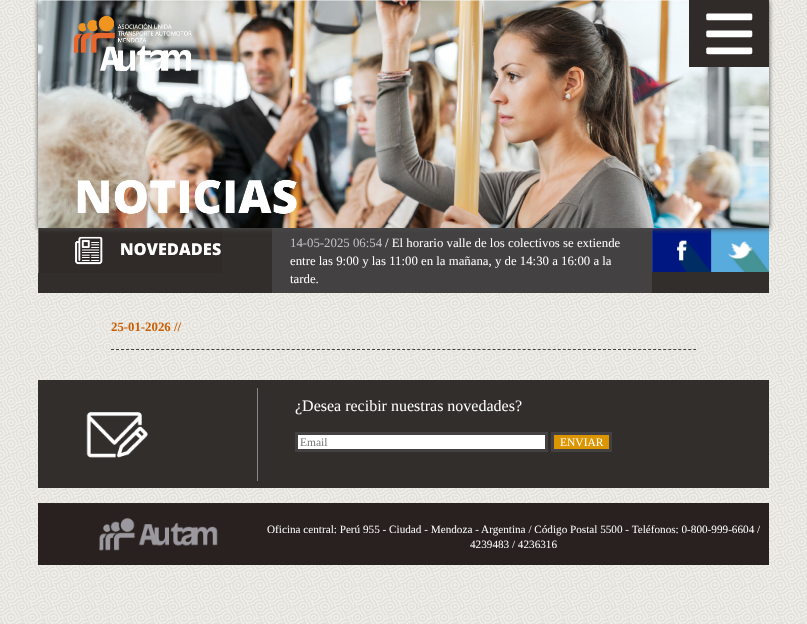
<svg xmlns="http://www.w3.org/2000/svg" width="807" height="624">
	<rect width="100%" height="100%" fill="#FFFFFF" />
	<image x="0" y="0" width="807" height="624" href="assets/img1.png" />
	<rect x="38" y="228" width="731" height="65" fill="#322E2C" />
	<image x="38" y="228" width="184" height="45" href="assets/img4.png" />
	<rect x="272" y="228" width="380" height="65" fill="#434142" />
	<image x="652" y="228" width="59" height="44" href="assets/img5.png" />
	<image x="711" y="228" width="58" height="44" href="assets/img6.png" />
	<rect x="38" y="1" width="731" height="228" fill="#4A4A4A" filter="blur(2.5px)" />
	<image x="38" y="0" width="731" height="228" href="assets/img2.png" />
	<rect x="689" y="0" width="80" height="67" fill="#302B28" />
	<image x="706" y="13" width="47" height="42" href="assets/img3.png" />
	<text x="290" y="247" font-family="Liberation Serif" font-size="12.8" fill="#C2C3C8">14-05-2025 06:54</text>
	<g font-family="Liberation Serif" font-size="12.8" fill="#FFFFFF">
		<text x="385" y="247">/ El horario valle de los colectivos se extiende</text>
		<text x="290" y="265">entre las 9:00 y las 11:00 en la mañana, y de 14:30 a 16:00 a la</text>
		<text x="290" y="283">tarde.</text>
	</g>
	<text x="111" y="331" font-family="Liberation Serif" font-size="12.8" font-weight="700" fill="#CA5E04">25-01-2026 //</text>
	<path d="M111 349.5H696" fill="none" stroke="#434142" stroke-dasharray="3 2.02" />
	<rect x="38" y="380" width="731" height="108" fill="#322E2C" />
	<rect x="257" y="388" width="1" height="93" fill="#868589" />
	<image x="86" y="412" width="62" height="46" href="assets/img7.png" />
	<text x="295" y="411" font-family="Liberation Serif" font-size="16" fill="#FFFFFF">¿Desea recibir nuestras novedades?</text>
	<rect x="296.5" y="433.5" width="250" height="17" fill="#FFFFFF" stroke="#434142" stroke-width="3" />
	<text x="300" y="446" font-family="Liberation Serif" font-size="11.5" fill="#757575">Email</text>
	<rect x="552.5" y="433.5" width="58" height="17" fill="#DA9500" stroke="#434142" stroke-width="3" />
	<text x="560" y="446" font-family="Liberation Serif" font-size="11.5" fill="#FFFFFF">ENVIAR</text>
	<rect x="38" y="503" width="731" height="62" fill="#28211F" />
	<image x="39" y="503" width="218" height="48" href="assets/img8.png" />
	<g font-family="Liberation Serif" font-size="11.2" fill="#FFFFFF">
		<text x="267" y="533">Oficina central: Perú 955 - Ciudad - Mendoza - Argentina / Código Postal 5500 - Teléfonos: 0-800-999-6604 /</text>
		<text x="470" y="548">4239483 / 4236316</text>
	</g>
</svg>
